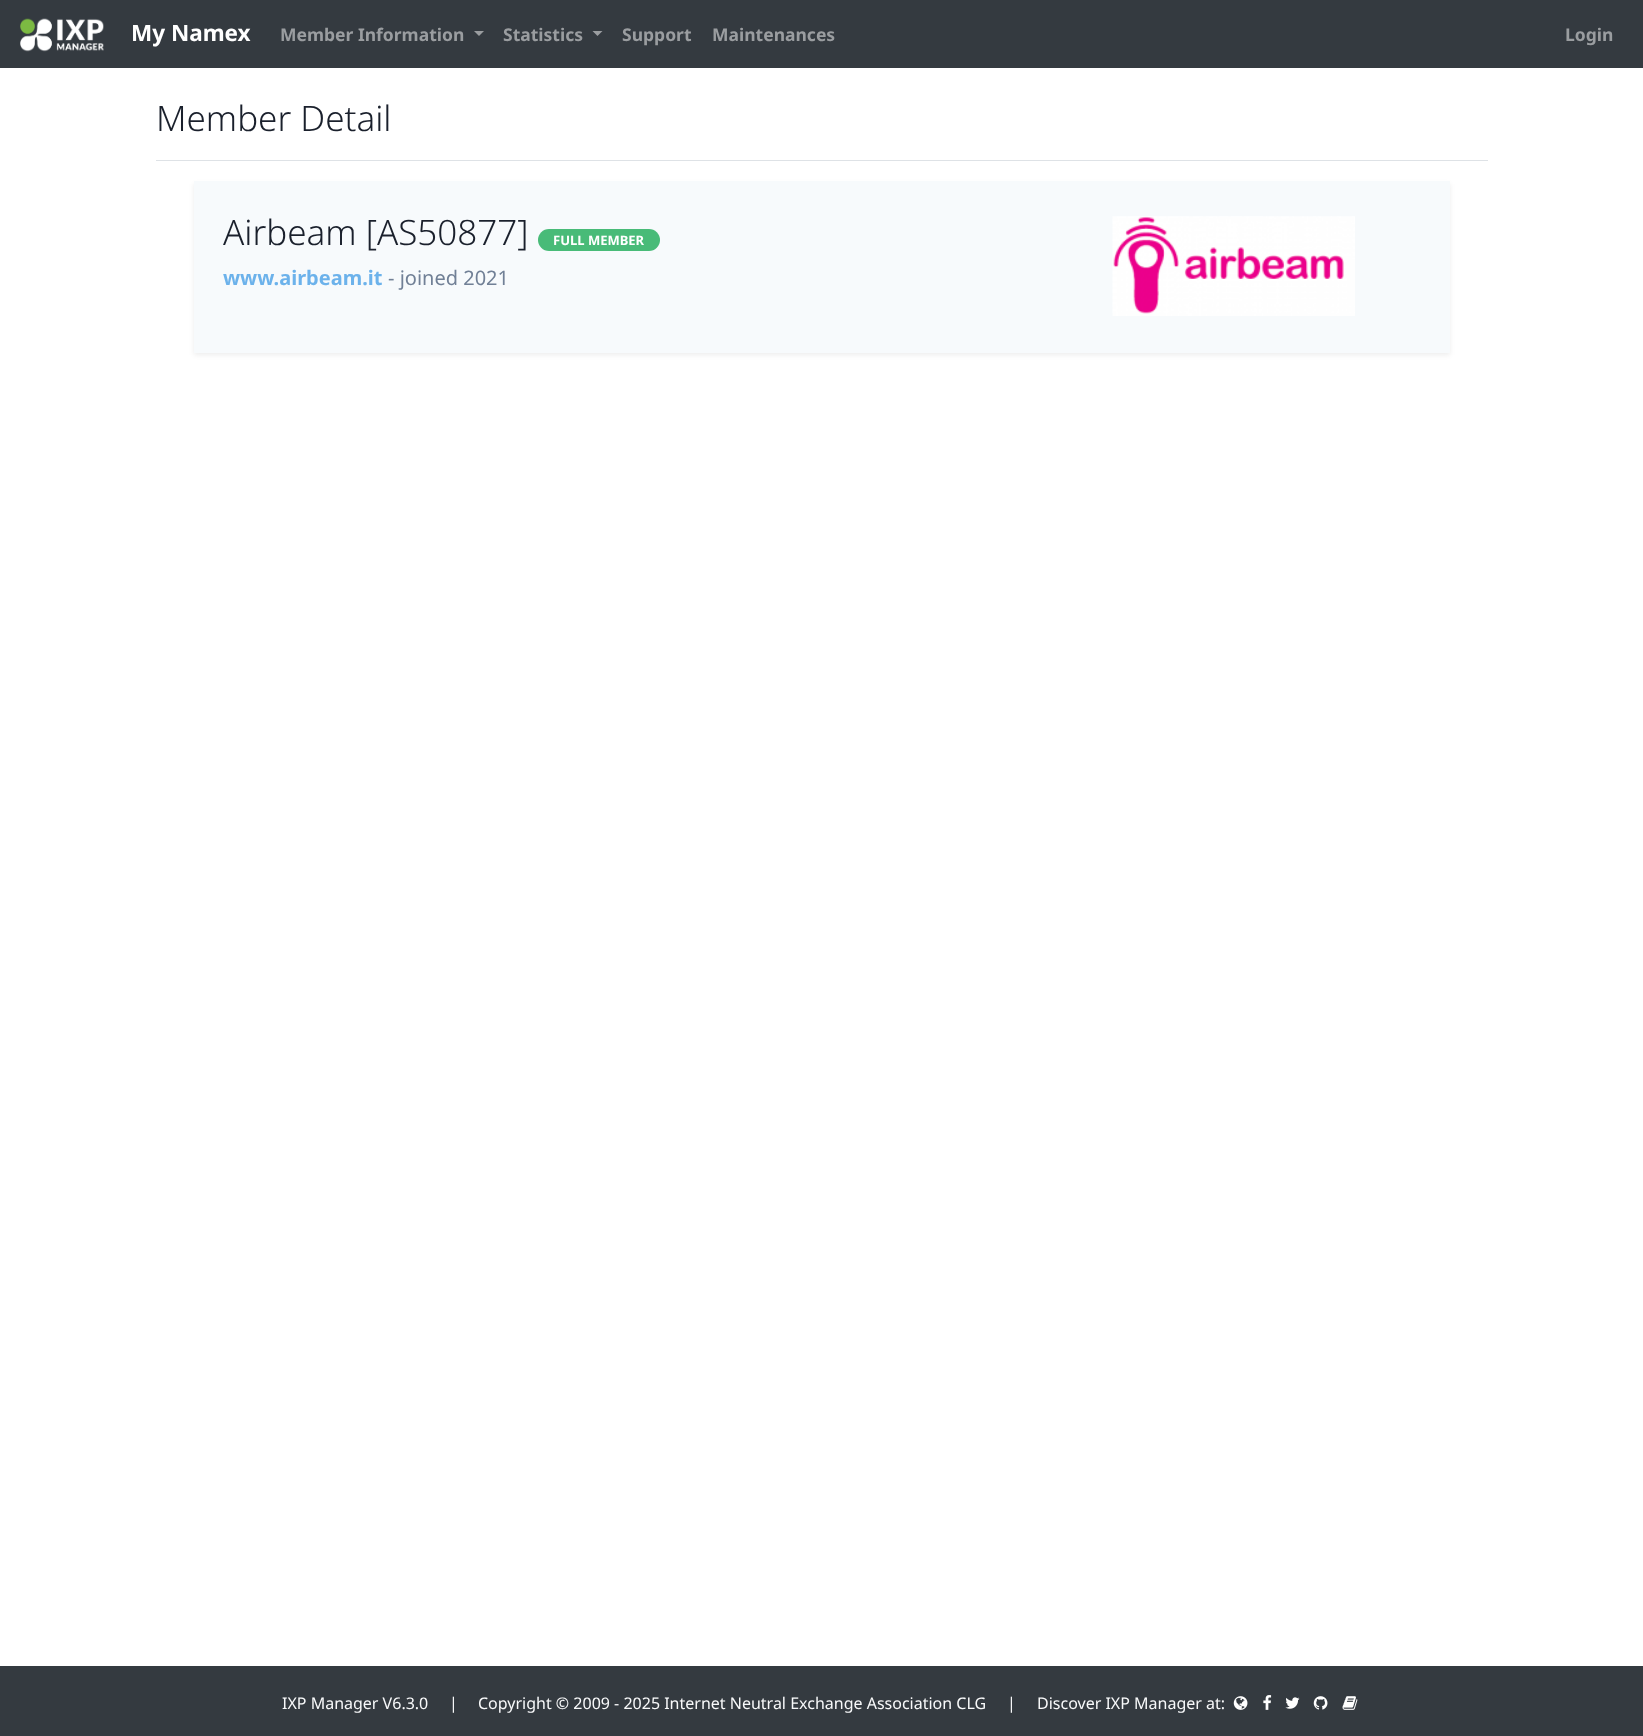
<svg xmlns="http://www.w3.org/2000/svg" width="1643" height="1736">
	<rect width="100%" height="100%" fill="#FFFFFF" />
	<rect x="0" y="0" width="1643" height="68" fill="#343A40" />
	<image x="20" y="18" width="84" height="34" href="assets/img1.png" />
	<text x="131" y="41" font-family="Noto Sans" font-size="22.5" font-weight="700" fill="#FFFFFF">My Namex</text>
	<text x="280" y="41" font-family="Noto Sans" font-size="17.5" font-weight="700" fill="#9A9DA0">Member Information</text>
	<path d="M474 31H484L479 36Z" fill="#9A9DA0" />
	<text x="503" y="41" font-family="Noto Sans" font-size="17.5" font-weight="700" fill="#9A9DA0">Statistics</text>
	<path d="M592.5 31H602.5L597.5 36Z" fill="#9A9DA0" />
	<g font-family="Noto Sans" font-size="17.5" font-weight="700" fill="#9A9DA0">
		<text x="622" y="41">Support</text>
		<text x="712" y="41">Maintenances</text>
		<text x="1565" y="41">Login</text>
	</g>
	<rect x="156" y="160" width="1332" height="1" fill="#DEE2E6" />
	<text x="156" y="131" font-family="Noto Sans" font-size="35" font-weight="300" fill="#1A202C">Member Detail</text>
	<rect x="194" y="184" width="1256" height="171" fill="#000000" fill-opacity="0.07" filter="blur(2.5px)" />
	<rect x="194" y="181" width="1256" height="172" fill="#F7FAFC" />
	<text x="223" y="245" font-family="Noto Sans" font-size="35" font-weight="300" fill="#1A202C">Airbeam [AS50877]</text>
	<rect x="538" y="229" width="122" height="22" rx="11" fill="#48BB78" />
	<text x="553" y="245" font-family="Noto Sans" font-size="13" font-weight="700" fill="#FFFFFF">FULL MEMBER</text>
	<text x="223" y="285" font-family="Noto Sans" font-size="20" font-weight="700" fill="#6CB2EB">www.airbeam.it</text>
	<text x="388" y="285" font-family="Noto Sans" font-size="20" fill="#718096">- joined 2021</text>
	<image x="1112" y="216" width="243" height="100" href="assets/img2.png" />
	<rect x="0" y="1666" width="1643" height="70" fill="#343A40" />
	<g font-family="Noto Sans" font-size="16" fill="#F8F9FA">
		<text x="282" y="1709">IXP Manager V6.3.0</text>
		<text x="449" y="1709">|</text>
		<text x="478" y="1709">Copyright © 2009 - 2025 Internet Neutral Exchange Association CLG</text>
		<text x="1007" y="1709">|</text>
		<text x="1037" y="1709">Discover IXP Manager at:</text>
	</g>
	<image x="1233" y="1696" width="15" height="14" href="assets/img3.png" />
	<image x="1263" y="1695" width="9" height="15" href="assets/img4.png" />
	<image x="1285" y="1697" width="15" height="12" href="assets/img5.png" />
	<image x="1313" y="1696" width="15" height="14" href="assets/img6.png" />
	<image x="1342" y="1696" width="16" height="14" href="assets/img7.png" />
</svg>
